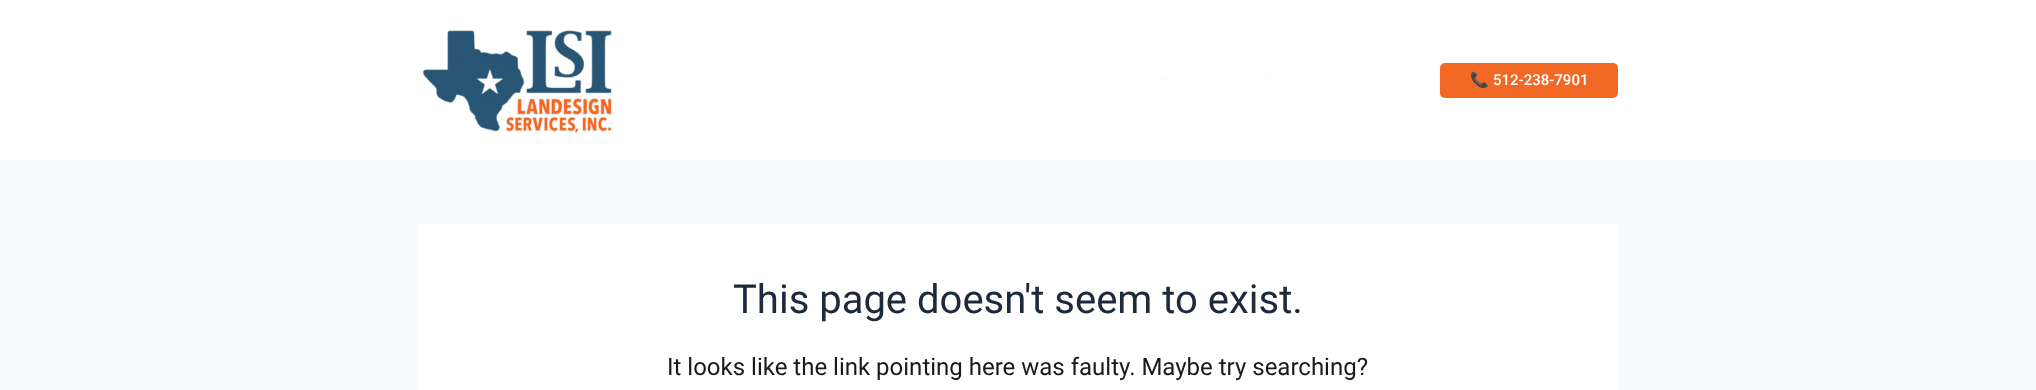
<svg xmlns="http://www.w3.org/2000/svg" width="2036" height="390">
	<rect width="100%" height="100%" fill="#F9FAFB" />
	<rect x="0" y="0" width="2036" height="160" fill="#FFFFFF" />
	<image x="422" y="30" width="191" height="104" href="assets/img1.png" />
	<image x="1029" y="75" width="8" height="5" href="assets/img2.png" />
	<image x="1159" y="75" width="8" height="5" href="assets/img2.png" />
	<image x="1262" y="75" width="8" height="5" href="assets/img2.png" />
	<rect x="1440" y="63" width="178" height="35" rx="5" fill="#F26926" />
	<text x="1470" y="85" font-family="Noto Color Emoji" font-size="15" fill="#FFFFFF">📞</text>
	<text x="1493" y="85" font-family="Roboto" font-size="15" font-weight="500" fill="#FFFFFF">512-238-7901</text>
	<rect x="418" y="224" width="1200" height="166" fill="#FFFFFF" />
	<text x="733" y="313" font-family="Roboto" font-size="40" fill="#1E293B">This page doesn't seem to exist.</text>
	<text x="667" y="375" font-family="Roboto" font-size="24" fill="#1A1A1A">It looks like the link pointing here was faulty. Maybe try searching?</text>
</svg>
